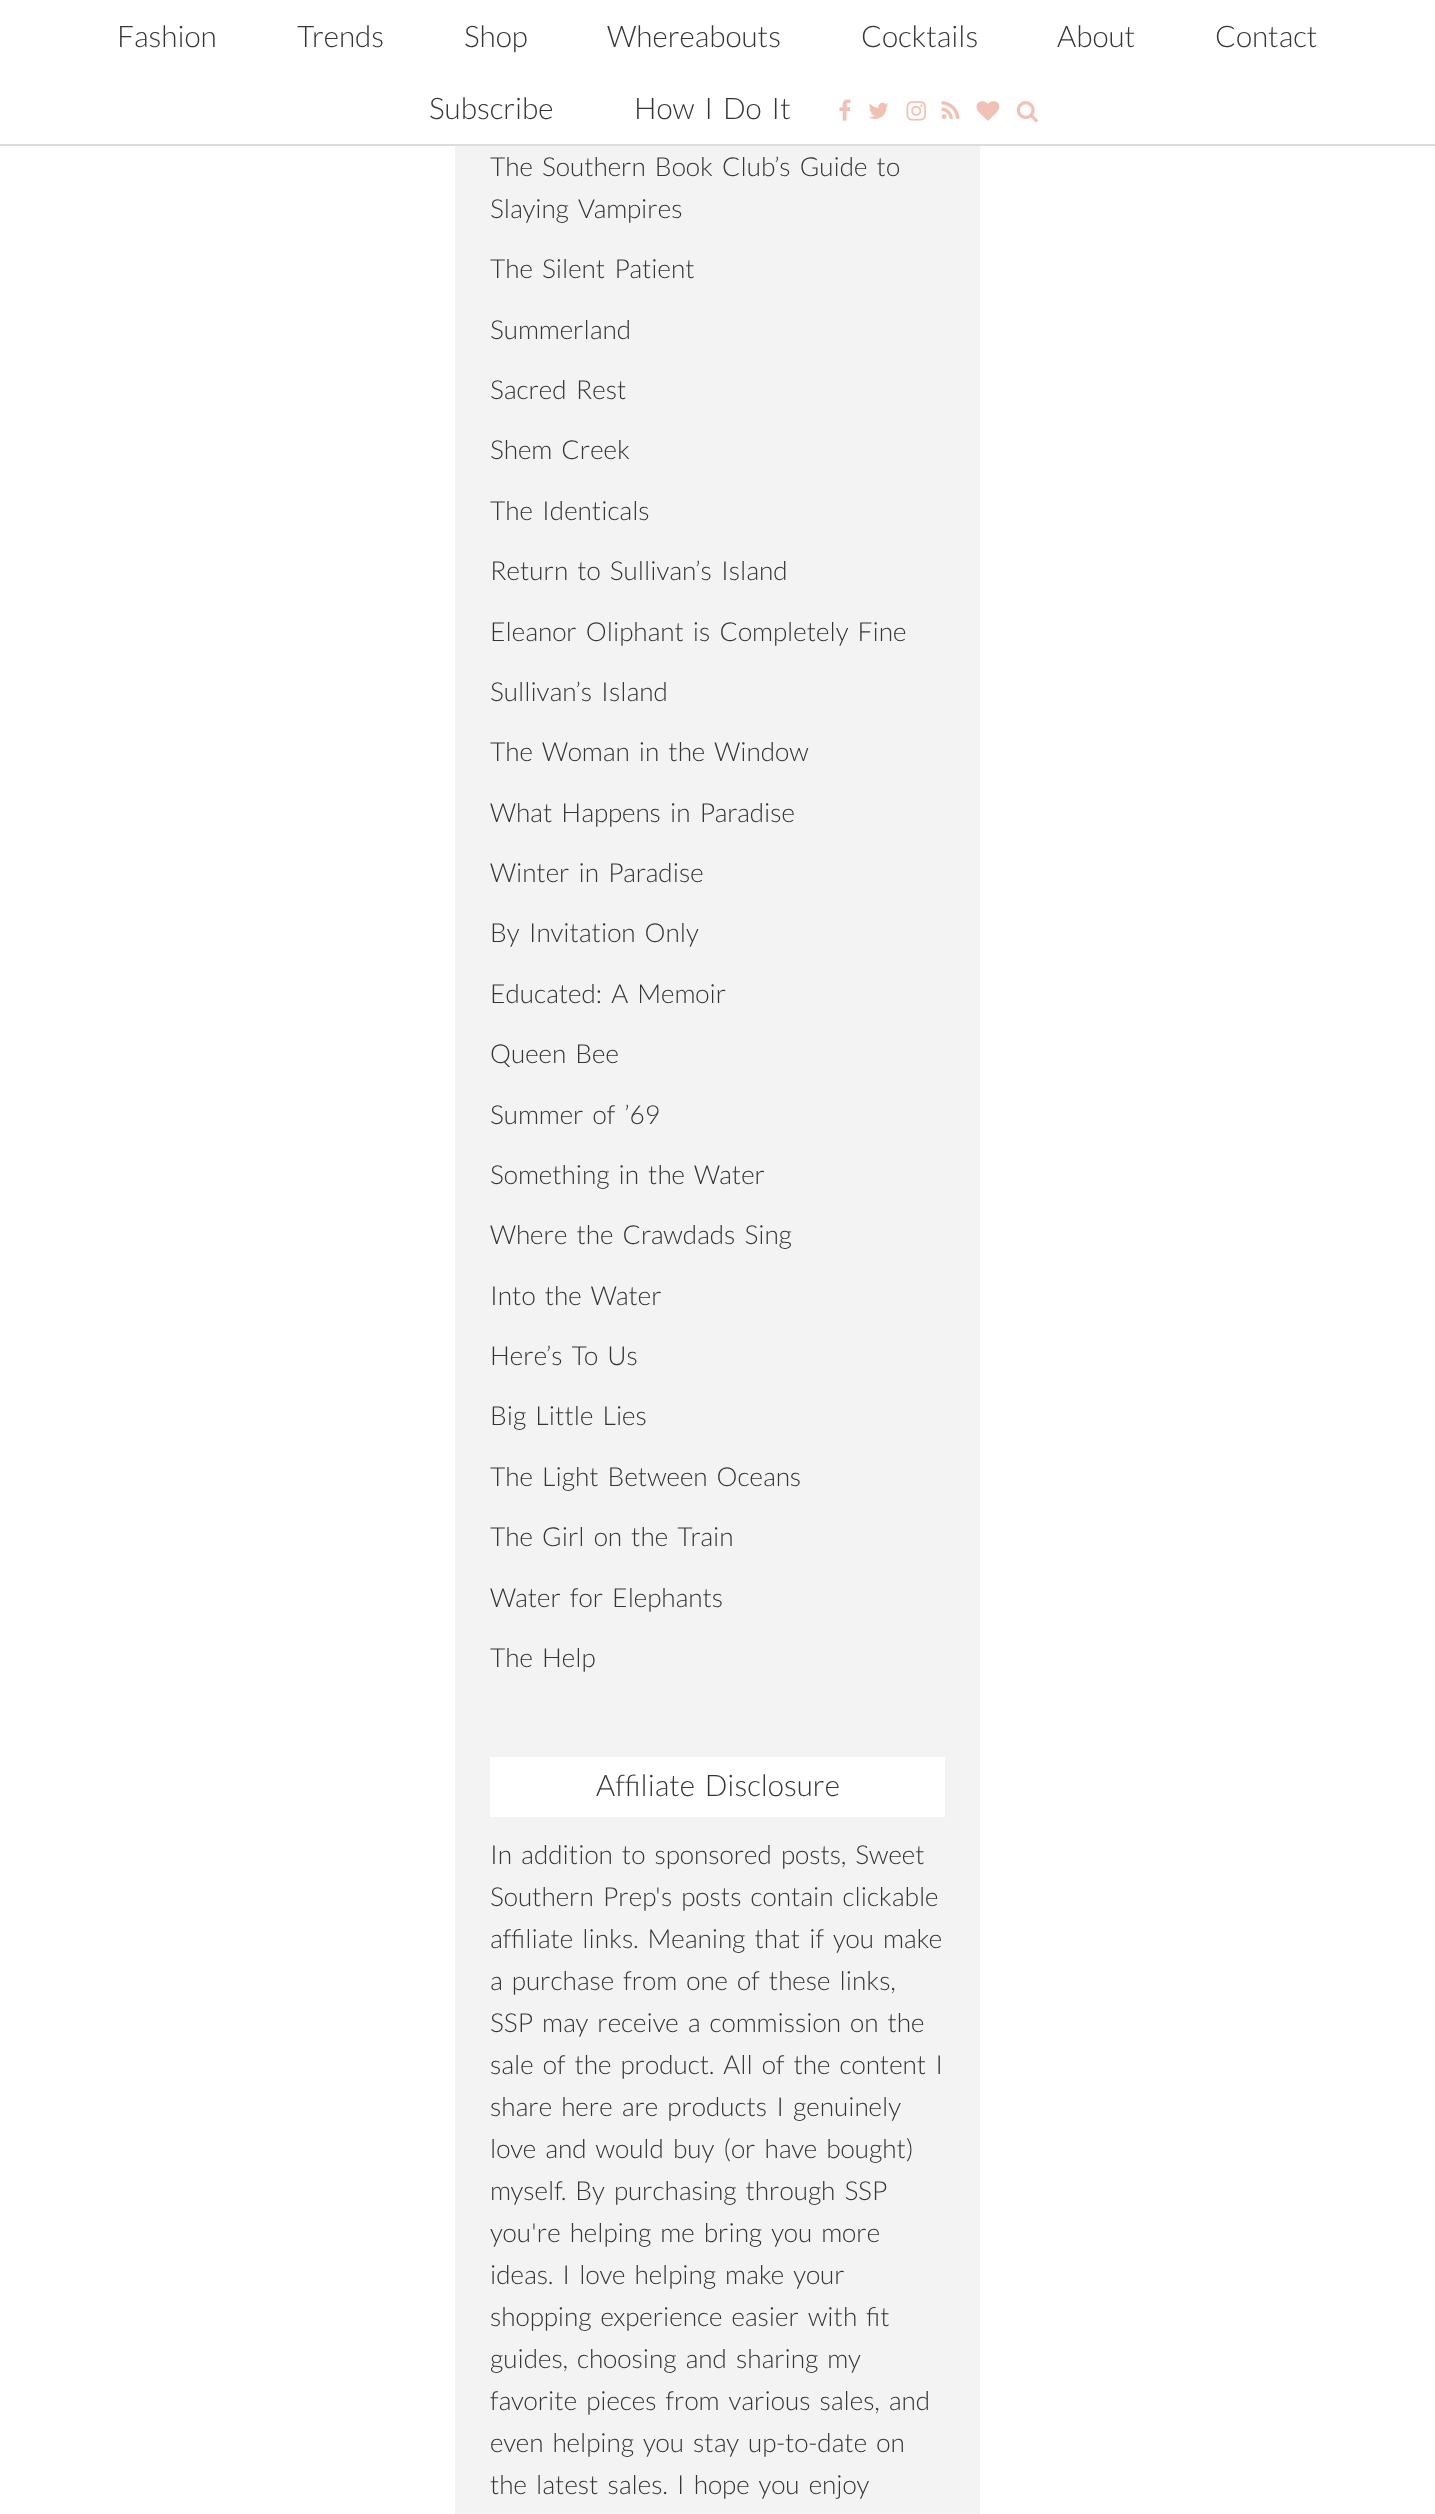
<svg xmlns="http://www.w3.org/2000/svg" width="1435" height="2514">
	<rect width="100%" height="100%" fill="#FFFFFF" />
	<rect x="0" y="144" width="1435" height="2" fill="#DDDDDD" />
	<g font-family="Lato" font-size="29.75" font-weight="300" fill="#353535">
		<text x="117" y="47">Fashion</text>
		<text x="297" y="47">Trends</text>
		<text x="464" y="47">Shop</text>
		<text x="607" y="47">Whereabouts</text>
		<text x="861" y="47">Cocktails</text>
		<text x="1057" y="47">About</text>
		<text x="1215" y="47">Contact</text>
		<text x="429" y="119">Subscribe</text>
		<text x="634" y="119" word-spacing="4">How I Do It</text>
	</g>
	<image x="839" y="99" width="12" height="22" href="assets/img1.png" />
	<image x="869" y="102" width="20" height="17" href="assets/img2.png" />
	<image x="906" y="101" width="20" height="20" href="assets/img3.png" />
	<image x="941" y="101" width="19" height="18" href="assets/img4.png" />
	<image x="976" y="101" width="24" height="20" href="assets/img5.png" />
	<image x="1016" y="101" width="22" height="22" href="assets/img6.png" />
	<rect x="455" y="146" width="525" height="2368" fill="#F3F3F3" />
	<g font-family="Lato" font-size="26.25" font-weight="300" fill="#353535">
		<text x="490" y="176" word-spacing="4">The Southern Book Club’s Guide to</text>
		<text x="490" y="218" word-spacing="4">Slaying Vampires</text>
		<text x="490" y="278" word-spacing="4">The Silent Patient</text>
		<text x="490" y="339">Summerland</text>
		<text x="490" y="399" word-spacing="4">Sacred Rest</text>
		<text x="490" y="459" word-spacing="4">Shem Creek</text>
		<text x="490" y="520" word-spacing="4">The Identicals</text>
		<text x="490" y="580" word-spacing="4">Return to Sullivan’s Island</text>
		<text x="490" y="641" word-spacing="4">Eleanor Oliphant is Completely Fine</text>
		<text x="490" y="701" word-spacing="4">Sullivan’s Island</text>
		<text x="490" y="761" word-spacing="4">The Woman in the Window</text>
		<text x="490" y="822" word-spacing="4">What Happens in Paradise</text>
		<text x="490" y="882" word-spacing="4">Winter in Paradise</text>
		<text x="490" y="942" word-spacing="4">By Invitation Only</text>
		<text x="490" y="1003" word-spacing="4">Educated: A Memoir</text>
		<text x="490" y="1063" word-spacing="4">Queen Bee</text>
		<text x="490" y="1124" word-spacing="4">Summer of ’69</text>
		<text x="490" y="1184" word-spacing="4">Something in the Water</text>
		<text x="490" y="1244" word-spacing="4">Where the Crawdads Sing</text>
		<text x="490" y="1305" word-spacing="4">Into the Water</text>
		<text x="490" y="1365" word-spacing="4">Here’s To Us</text>
		<text x="490" y="1425" word-spacing="4">Big Little Lies</text>
		<text x="490" y="1486" word-spacing="4">The Light Between Oceans</text>
		<text x="490" y="1546" word-spacing="4">The Girl on the Train</text>
		<text x="490" y="1607" word-spacing="4">Water for Elephants</text>
		<text x="490" y="1667" word-spacing="4">The Help</text>
	</g>
	<rect x="490" y="1757" width="455" height="60" fill="#FFFFFF" />
	<text x="596" y="1796" word-spacing="4" font-family="Lato" font-size="29.75" font-weight="300" fill="#353535">Affiliate Disclosure</text>
	<g font-family="Lato" font-size="26.25" font-weight="300" fill="#353535">
		<text x="490" y="1864" word-spacing="4">In addition to sponsored posts, Sweet</text>
		<text x="490" y="1906" word-spacing="4">Southern Prep's posts contain clickable</text>
		<text x="490" y="1948" word-spacing="4">affiliate links. Meaning that if you make</text>
		<text x="490" y="1990" word-spacing="4">a purchase from one of these links,</text>
		<text x="490" y="2032" word-spacing="4">SSP may receive a commission on the</text>
		<text x="490" y="2074" word-spacing="4">sale of the product. All of the content I</text>
		<text x="490" y="2116" word-spacing="4">share here are products I genuinely</text>
		<text x="490" y="2158" word-spacing="4">love and would buy (or have bought)</text>
		<text x="490" y="2200" word-spacing="4">myself. By purchasing through SSP</text>
		<text x="490" y="2242" word-spacing="4">you're helping me bring you more</text>
		<text x="490" y="2284" word-spacing="4">ideas. I love helping make your</text>
		<text x="490" y="2326" word-spacing="4">shopping experience easier with fit</text>
		<text x="490" y="2368" word-spacing="4">guides, choosing and sharing my</text>
		<text x="490" y="2410" word-spacing="4">favorite pieces from various sales, and</text>
		<text x="490" y="2452" word-spacing="4">even helping you stay up-to-date on</text>
		<text x="490" y="2494" word-spacing="4">the latest sales. I hope you enjoy</text>
	</g>
</svg>
